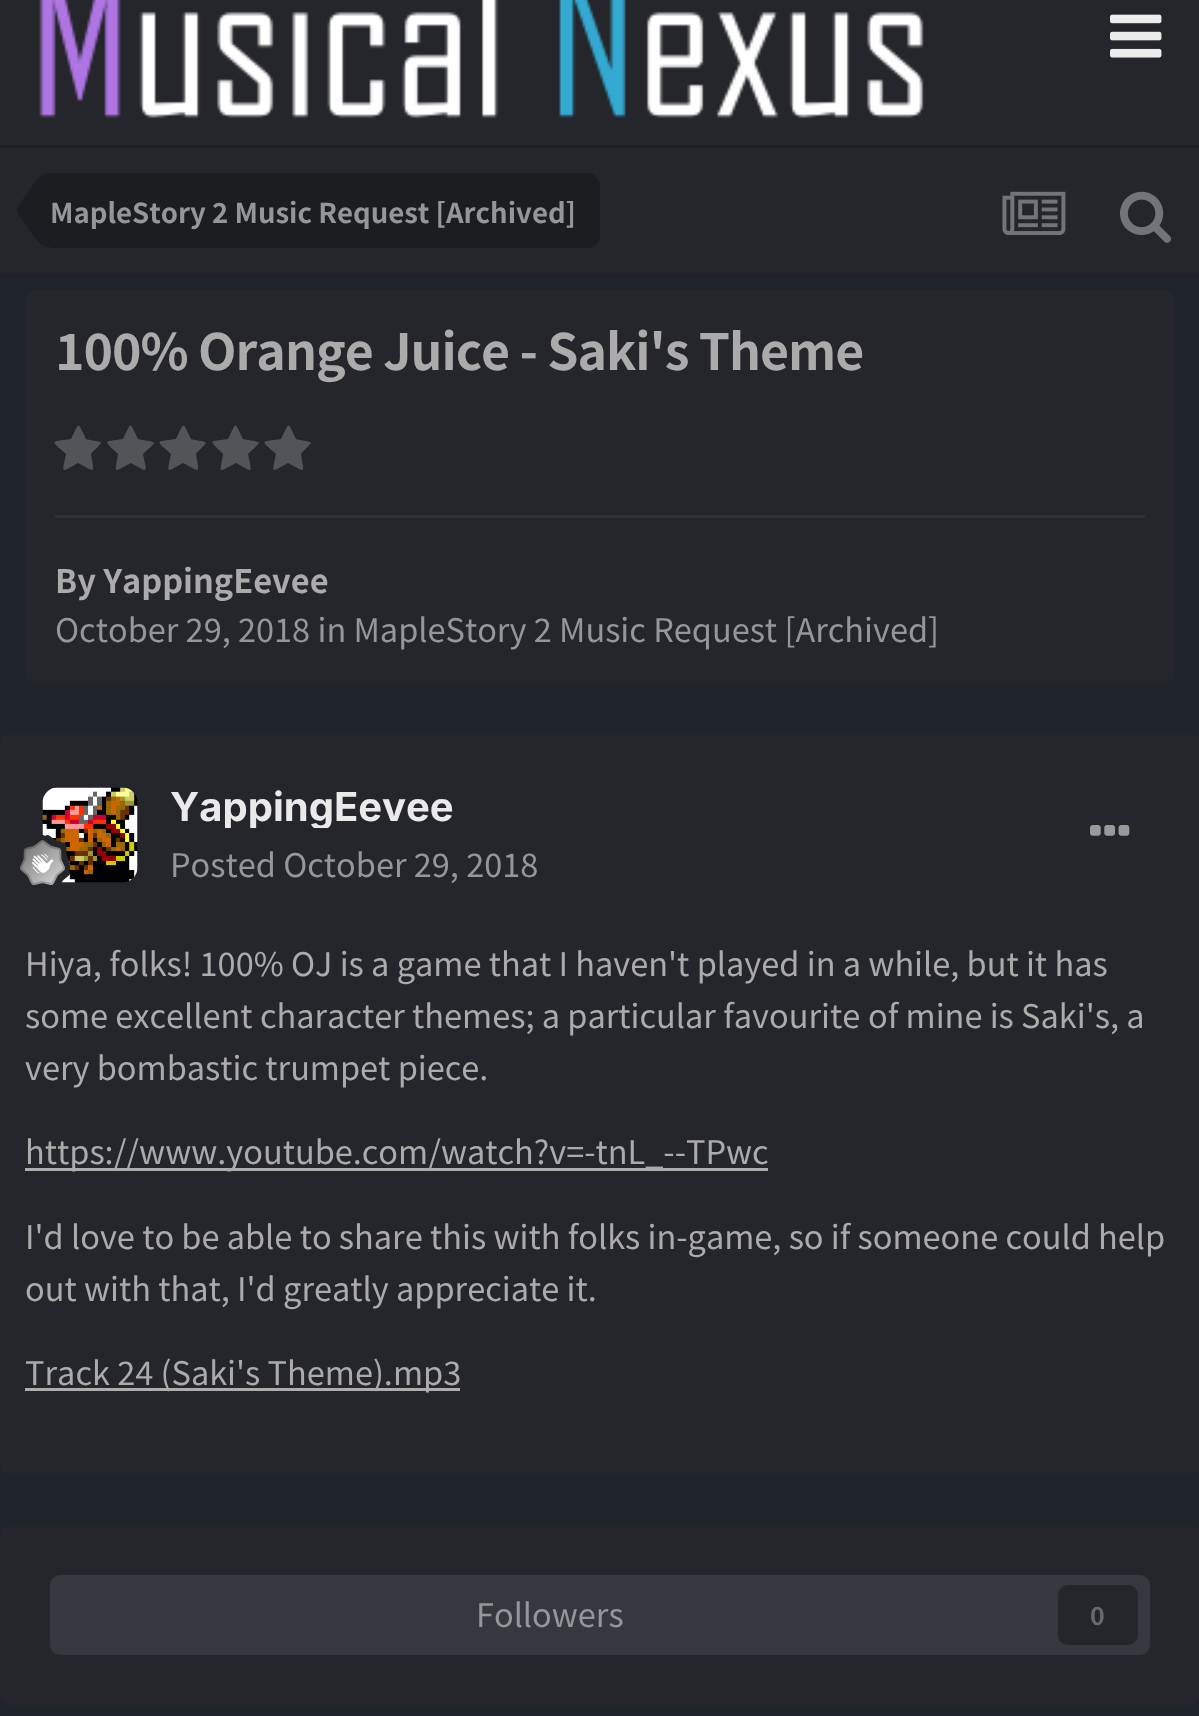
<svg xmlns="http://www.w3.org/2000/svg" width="1199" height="1716">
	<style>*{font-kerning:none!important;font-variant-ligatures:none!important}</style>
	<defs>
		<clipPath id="clip1"><rect x="170" y="783" width="283" height="45" /></clipPath>
	</defs>
	<rect width="100%" height="100%" fill="#24262B" />
	<rect x="0" y="145" width="1199" height="3" fill="#1D1E22" />
	<image x="39" y="0" width="885" height="118" href="assets/img1.png" />
	<image x="1110" y="14" width="52" height="44" href="assets/img2.png" />
	<rect x="0" y="273" width="1199" height="5" fill="#202227" />
	<path d="M50 173H587C594 173 600 179 600 186V235C600 242 594 248 587 248H50Z" fill="#1B1D20" />
	<path d="M50 210V247C44.5 247 39 244 35 238L19 215C18 213.5 17.5 212 17.5 210Z" fill="#1B1D20" />
	<path d="M50 210H17.5C17.5 208 18 206.5 19 205L35 182C39 176 44.5 173 50 173Z" fill="#1B1D20" />
	<text x="50" y="223" font-family="Noto Sans JP" font-size="27.5" font-weight="700" fill="#94969A">MapleStory 2 Music Request [Archived]</text>
	<image x="1002" y="191" width="64" height="44" href="assets/img3.png" />
	<image x="1120" y="191" width="51" height="52" href="assets/img4.png" />
	<rect x="0" y="278" width="1199" height="1438" fill="#1F232A" />
	<rect x="25" y="290" width="1150" height="393" rx="10" fill="#24262B" />
	<text x="55" y="370" font-family="Noto Sans JP" font-size="50" font-weight="700" letter-spacing="-1" fill="#ABABAB">100% Orange Juice - Saki's Theme</text>
	<path d="M101 443C101 444 92 452 91 454C94 474 97 473 78 463C60 473 62 474 66 454C51 440 49 442 71 439C80 421 77 421 86 439C88 440 101 441 101 443Z" fill="#535457" />
	<path d="M154 443C154 444 145 452 143 454C147 474 149 473 131 463C112 473 115 474 118 454C104 440 102 442 123 439C132 421 129 421 138 439C141 440 154 441 154 443Z" fill="#535457" />
	<path d="M206 443C206 444 197 452 196 454C199 474 202 473 183 463C165 473 167 474 171 454C156 440 154 442 176 439C185 421 182 421 191 439C193 440 206 441 206 443Z" fill="#535457" />
	<path d="M259 443C259 444 250 452 248 454C252 474 254 473 236 463C217 473 220 474 223 454C209 440 207 442 228 439C237 421 234 421 243 439C246 440 259 441 259 443Z" fill="#535457" />
	<path d="M311 443C311 444 302 452 301 454C304 474 307 473 288 463C270 473 272 474 276 454C261 440 259 442 281 439C290 421 287 421 296 439C298 440 311 441 311 443Z" fill="#535457" />
	<rect x="55" y="515" width="1090" height="3" fill="#2F3135" />
	<text x="55" y="593" font-family="Noto Sans JP" font-size="32.5" font-weight="700" fill="#ABABAB">By YappingEevee</text>
	<text x="55" y="642" font-family="Noto Sans JP" font-size="32.5" fill="#94969A">October 29, 2018 in MapleStory 2 Music Request [Archived]</text>
	<rect x="0" y="733" width="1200" height="742" rx="10" fill="#24262B" />
	<image x="42" y="787" width="96" height="96" href="assets/img5.png" />
	<image x="20" y="835" width="50" height="50" href="assets/img6.png" />
	<g clip-path="url(#clip1)">
		<text x="170" y="821" font-family="Inter" font-size="40" font-weight="700" fill="#EAEAEA">YappingEevee</text>
	</g>
	<text x="170" y="877" font-family="Noto Sans JP" font-size="32.5" fill="#94969A">Posted October 29, 2018</text>
	<image x="1090" y="825" width="40" height="11" href="assets/img7.png" />
	<g font-family="Noto Sans JP" font-size="32.5" fill="#ABABAB">
		<text x="25" y="976">Hiya, folks! 100% OJ is a game that I haven't played in a while, but it has</text>
		<text x="25" y="1028">some excellent character themes; a particular favourite</text>
		<text x="868" y="1028">of mine is Saki's, a</text>
		<text x="25" y="1080">very bombastic trumpet piece.</text>
	</g>
	<rect x="25" y="1168" width="743" height="3" fill="#ADADAD" />
	<g font-family="Noto Sans JP" font-size="32.5" fill="#ABABAB">
		<text x="25" y="1164">https://www.youtube.com/watch?v=-tnL_--TPwc</text>
		<text x="25" y="1249">I'd love to be able to share this with folks in-game, so if someone could help</text>
		<text x="25" y="1301">out with that, I'd greatly appreciate it.</text>
	</g>
	<rect x="25" y="1388" width="435" height="3" fill="#ADADAD" />
	<text x="25" y="1385" font-family="Noto Sans JP" font-size="32.5" fill="#ABABAB">Track 24 (Saki's Theme).mp3</text>
	<rect x="0" y="1525" width="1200" height="180" rx="10" fill="#24262B" />
	<rect x="50" y="1575" width="1100" height="80" rx="10" fill="#35383E" />
	<text x="476" y="1627" font-family="Noto Sans JP" font-size="32.5" fill="#94969A">Followers</text>
	<rect x="1058" y="1585" width="80" height="60" rx="10" fill="#24262B" />
	<text x="1090" y="1625" font-family="Noto Sans JP" font-size="25" font-weight="700" fill="#68696B">0</text>
</svg>
